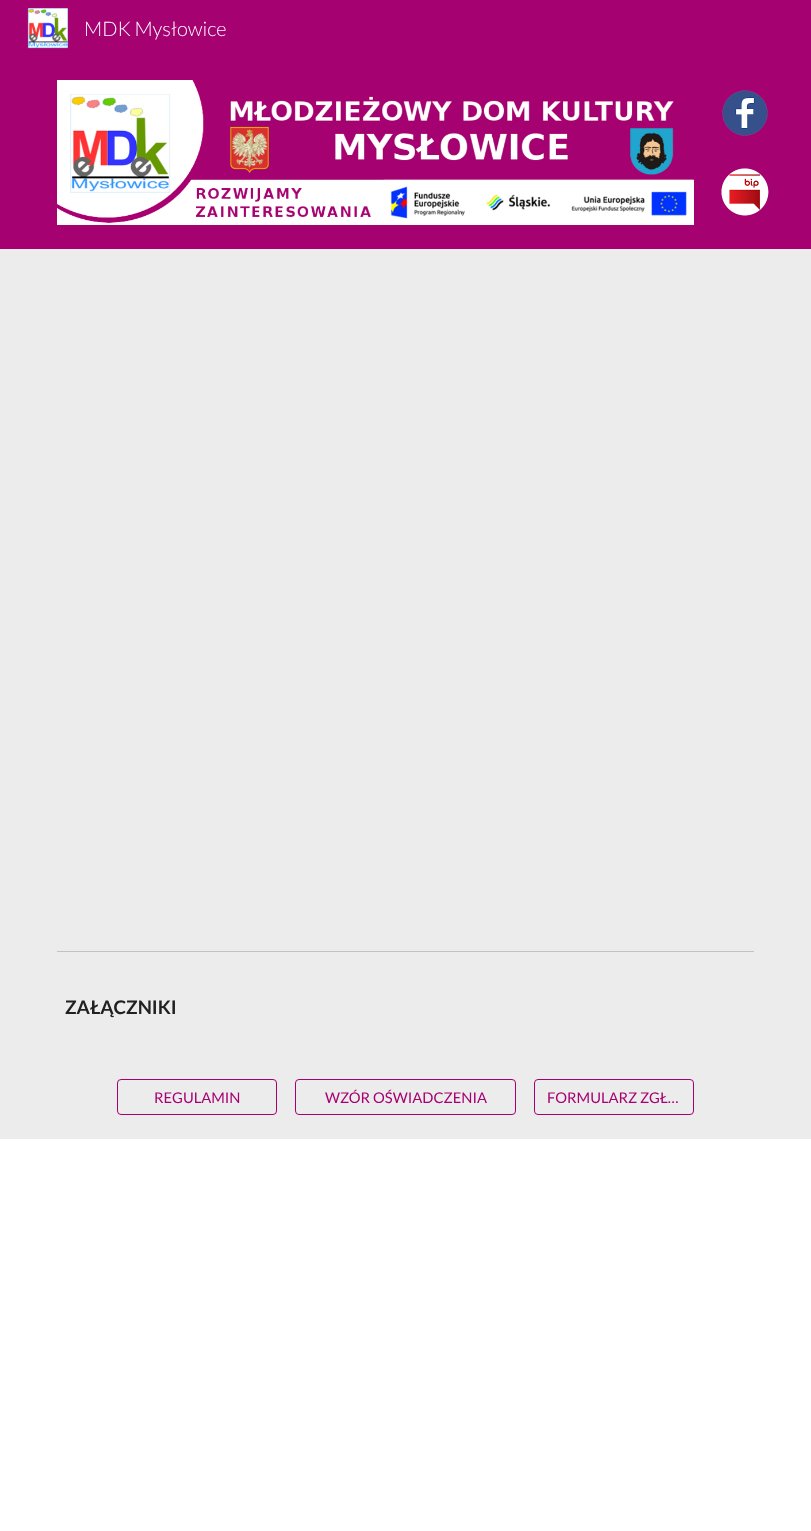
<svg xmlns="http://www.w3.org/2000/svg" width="811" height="1531">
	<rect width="100%" height="100%" fill="#FFFFFF" />
	<rect x="0" y="0" width="811" height="249" fill="#A60171" />
	<image x="27" y="8" width="41" height="41" href="assets/img1.png" />
	<text x="84" y="36" font-family="Lato" font-size="20" font-weight="300" fill="#FFFFFF">MDK Mysłowice</text>
	<image x="57" y="80" width="637" height="145" href="assets/img2.png" />
	<image x="722" y="90" width="46" height="46" href="assets/img3.png" />
	<image x="721" y="168" width="48" height="48" href="assets/img4.png" />
	<rect x="0" y="249" width="811" height="890" fill="#ECECEC" />
	<rect x="57" y="951" width="697" height="1" fill="#C2C2C2" />
	<text x="65" y="1014" font-family="Lato" font-size="18.75" font-weight="700" fill="#212121">ZAŁĄCZNIKI</text>
	<rect x="117.5" y="1079.5" width="159" height="35" rx="3.5" fill="none" stroke="#A60171" />
	<text x="154" y="1103" font-family="Lato" font-size="14.75" fill="#A60171">REGULAMIN</text>
	<rect x="295.5" y="1079.5" width="220" height="35" rx="3.5" fill="none" stroke="#A60171" />
	<text x="325" y="1103" font-family="Lato" font-size="14.75" fill="#A60171">WZÓR OŚWIADCZENIA</text>
	<rect x="534.5" y="1079.5" width="159" height="35" rx="3.5" fill="none" stroke="#A60171" />
	<text x="547" y="1103" font-family="Lato" font-size="14.75" fill="#A60171">FORMULARZ ZGŁ…</text>
</svg>
